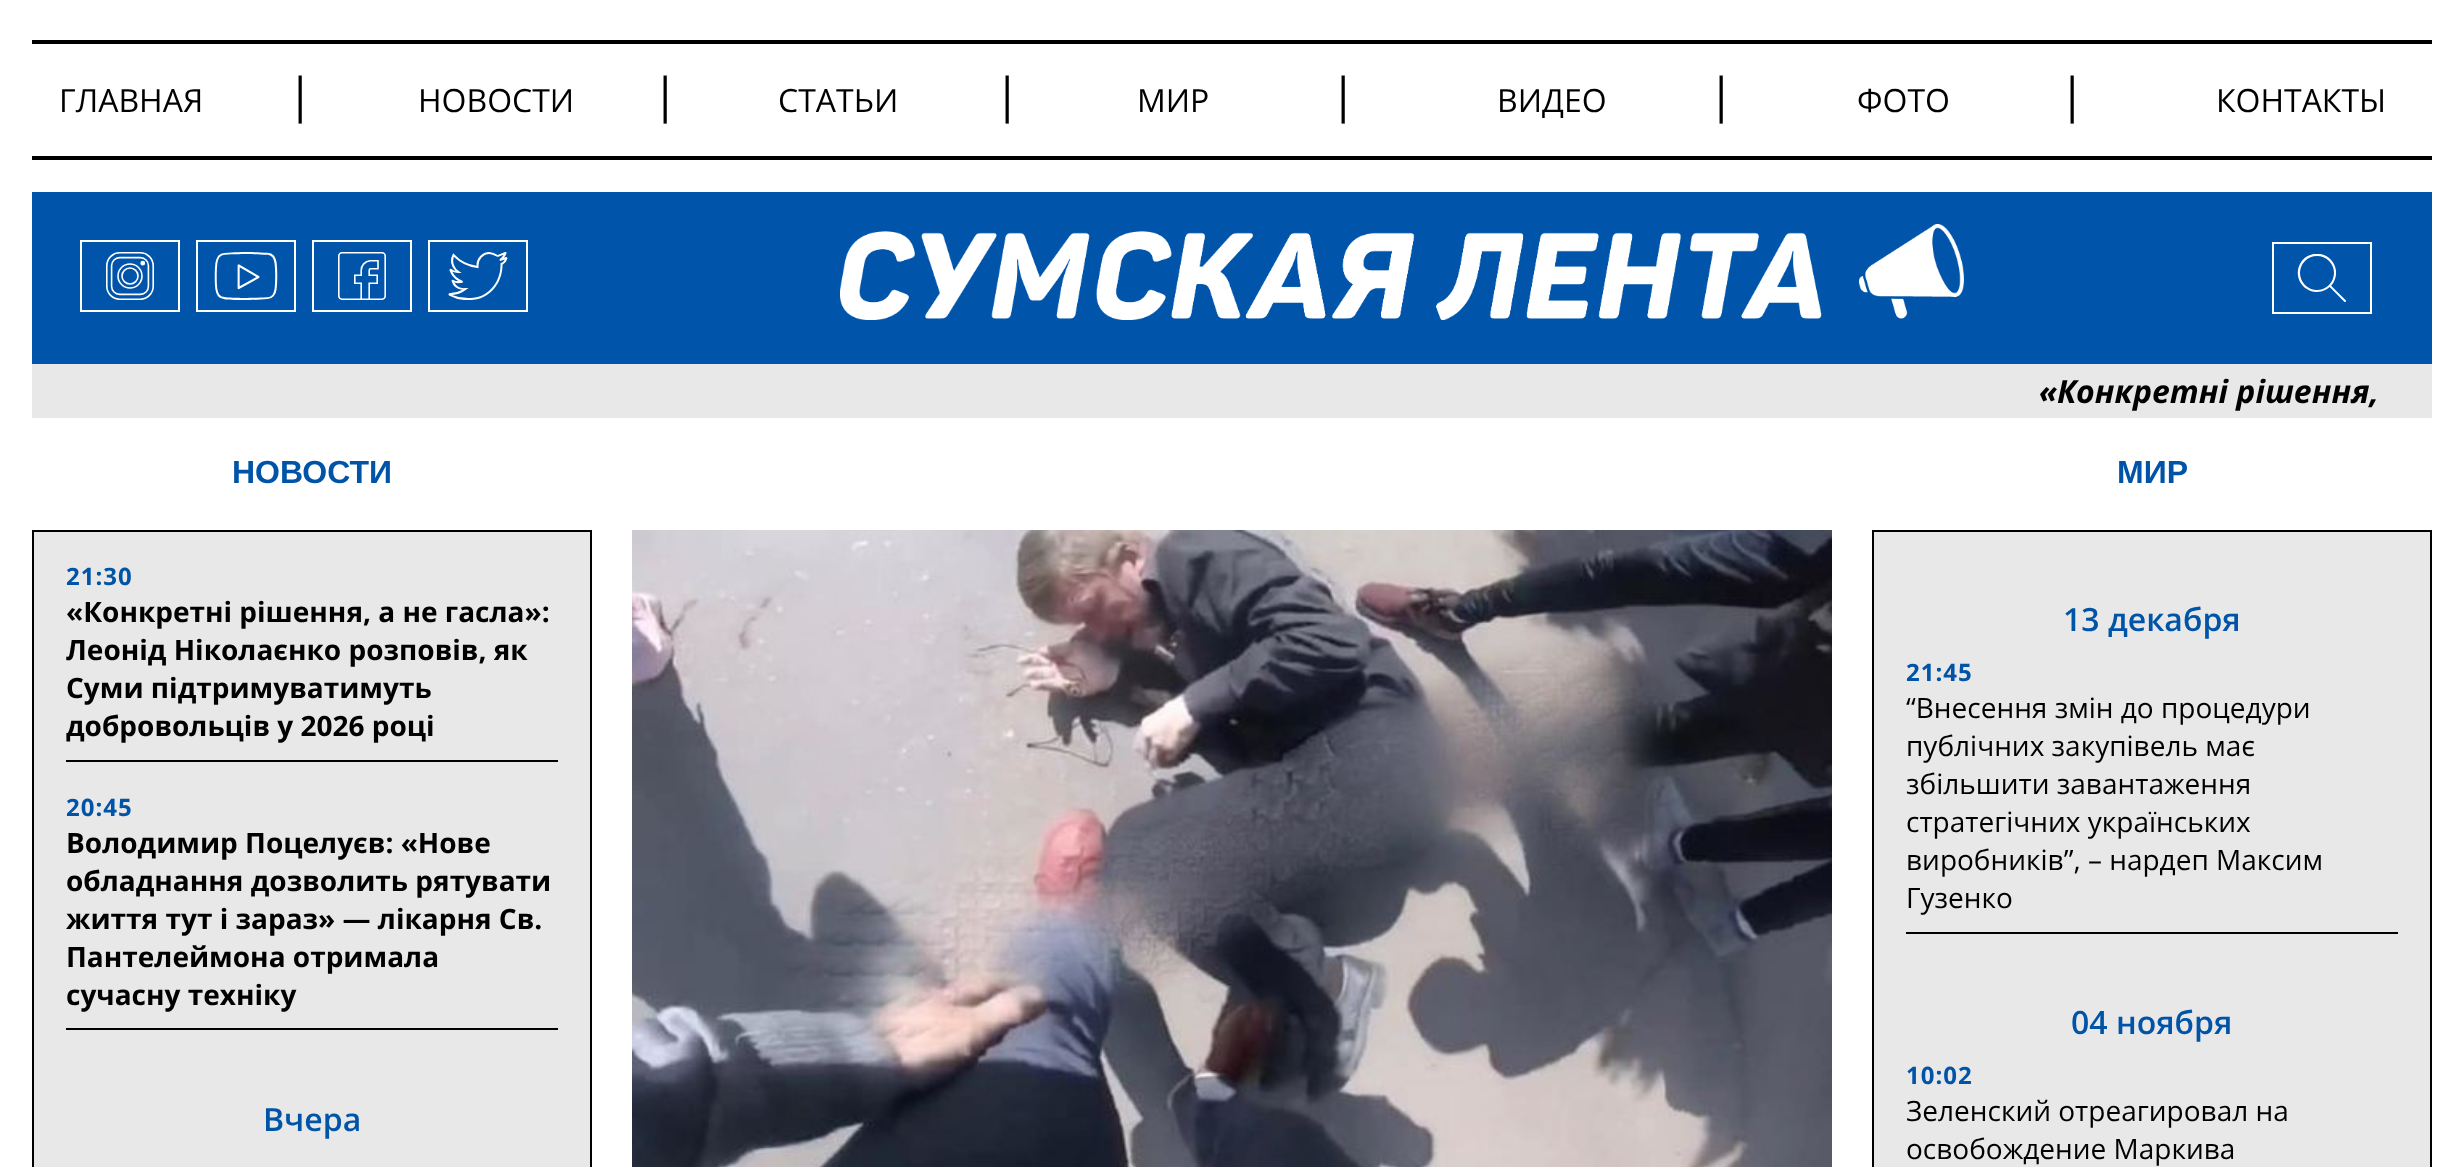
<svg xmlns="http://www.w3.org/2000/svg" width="2463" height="1167">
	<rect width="100%" height="100%" fill="#FFFFFF" />
	<rect x="32" y="40" width="2400" height="4" fill="#000000" />
	<rect x="32" y="156" width="2400" height="4" fill="#000000" />
	<text x="59" y="112" font-family="Open Sans" font-size="32" fill="#000000">ГЛАВНАЯ</text>
	<text x="287" y="112" font-family="Open Sans" font-size="48" fill="#000000">|</text>
	<text x="418" y="112" font-family="Open Sans" font-size="32" fill="#000000">НОВОСТИ</text>
	<text x="652" y="112" font-family="Open Sans" font-size="48" fill="#000000">|</text>
	<text x="778" y="112" font-family="Open Sans" font-size="32" fill="#000000">СТАТЬИ</text>
	<text x="994" y="112" font-family="Open Sans" font-size="48" fill="#000000">|</text>
	<text x="1137" y="112" font-family="Open Sans" font-size="32" fill="#000000">МИР</text>
	<text x="1330" y="112" font-family="Open Sans" font-size="48" fill="#000000">|</text>
	<text x="1497" y="112" font-family="Open Sans" font-size="32" fill="#000000">ВИДЕО</text>
	<text x="1708" y="112" font-family="Open Sans" font-size="48" fill="#000000">|</text>
	<text x="1857" y="112" font-family="Open Sans" font-size="32" fill="#000000">ФОТО</text>
	<text x="2059" y="112" font-family="Open Sans" font-size="48" fill="#000000">|</text>
	<text x="2216" y="112" font-family="Open Sans" font-size="32" fill="#000000">КОНТАКТЫ</text>
	<rect x="32" y="192" width="2400" height="172" fill="#0055AA" />
	<rect x="81" y="241" width="98" height="70" fill="none" stroke="#FFFFFF" stroke-width="2" />
	<image x="106" y="252" width="48" height="48" href="assets/img1.png" />
	<rect x="197" y="241" width="98" height="70" fill="none" stroke="#FFFFFF" stroke-width="2" />
	<image x="214" y="252" width="64" height="48" href="assets/img2.png" />
	<rect x="313" y="241" width="98" height="70" fill="none" stroke="#FFFFFF" stroke-width="2" />
	<image x="338" y="252" width="48" height="48" href="assets/img3.png" />
	<rect x="429" y="241" width="98" height="70" fill="none" stroke="#FFFFFF" stroke-width="2" />
	<image x="448" y="252" width="60" height="48" href="assets/img4.png" />
	<image x="840" y="224" width="1124" height="96" href="assets/img5.png" />
	<rect x="2273" y="243" width="98" height="70" fill="none" stroke="#FFFFFF" stroke-width="2" />
	<image x="2297" y="254" width="49" height="48" href="assets/img6.png" />
	<rect x="32" y="364" width="2400" height="54" fill="#E8E8E8" />
	<text x="2039" y="403" font-family="Open Sans" font-size="32" font-weight="700" font-style="italic" fill="#000000">«Конкретні рішення,</text>
	<text x="232" y="483" font-family="Liberation Sans" font-size="32" font-weight="700" fill="#0054A8">НОВОСТИ</text>
	<rect x="33" y="531" width="558" height="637" fill="#E8E8E8" stroke="#000000" stroke-width="2" />
	<rect x="66" y="760" width="492" height="2" fill="#000000" />
	<text x="66" y="585" font-family="Open Sans" font-size="24" font-weight="700" letter-spacing="1" fill="#0054A8">21:30</text>
	<g font-family="Open Sans" font-size="28" font-weight="700" fill="#000000">
		<text x="66" y="622">«Конкретні рішення, а не гасла»:</text>
		<text x="66" y="660">Леонід Ніколаєнко розповів, як</text>
		<text x="66" y="698">Суми підтримуватимуть</text>
		<text x="66" y="736">добровольців у 2026 році</text>
	</g>
	<rect x="66" y="1028" width="492" height="2" fill="#000000" />
	<text x="66" y="816" font-family="Open Sans" font-size="24" font-weight="700" letter-spacing="1" fill="#0054A8">20:45</text>
	<g font-family="Open Sans" font-size="28" font-weight="700" fill="#000000">
		<text x="66" y="853">Володимир Поцелуєв: «Нове</text>
		<text x="66" y="891">обладнання дозволить рятувати</text>
		<text x="66" y="929">життя тут і зараз» — лікарня Св.</text>
		<text x="66" y="967">Пантелеймона отримала</text>
		<text x="66" y="1005">сучасну техніку</text>
	</g>
	<text x="263" y="1131" font-family="Open Sans" font-size="32" font-weight="600" fill="#0054A8">Вчера</text>
	<image x="632" y="530" width="1200" height="637" href="assets/img7.png" />
	<text x="2117" y="483" font-family="Liberation Sans" font-size="32" font-weight="700" fill="#0054A8">МИР</text>
	<rect x="1873" y="531" width="558" height="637" fill="#E8E8E8" stroke="#000000" stroke-width="2" />
	<text x="2063" y="631" font-family="Open Sans" font-size="32" font-weight="600" fill="#0054A8">13 декабря</text>
	<rect x="1906" y="932" width="492" height="2" fill="#000000" />
	<text x="1906" y="681" font-family="Open Sans" font-size="24" font-weight="700" letter-spacing="1" fill="#0054A8">21:45</text>
	<g font-family="Open Sans" font-size="28" fill="#000000">
		<text x="1906" y="718">“Внесення змін до процедури</text>
		<text x="1906" y="756">публічних закупівель має</text>
		<text x="1906" y="794">збільшити завантаження</text>
		<text x="1906" y="832">стратегічних українських</text>
		<text x="1906" y="870">виробників”, – нардеп Максим</text>
		<text x="1906" y="908">Гузенко</text>
	</g>
	<text x="2071" y="1034" font-family="Open Sans" font-size="32" font-weight="600" fill="#0054A8">04 ноября</text>
	<text x="1906" y="1084" font-family="Open Sans" font-size="24" font-weight="700" letter-spacing="1" fill="#0054A8">10:02</text>
	<g font-family="Open Sans" font-size="28" fill="#000000">
		<text x="1906" y="1121">Зеленский отреагировал на</text>
		<text x="1906" y="1159">освобождение Маркива</text>
	</g>
</svg>
